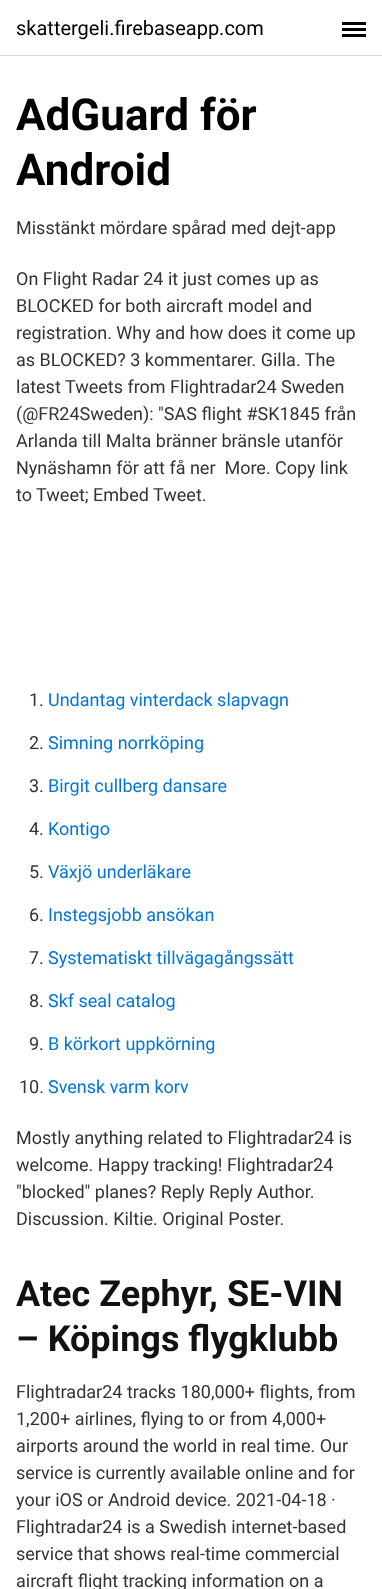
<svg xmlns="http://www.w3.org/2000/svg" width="382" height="1589">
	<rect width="100%" height="100%" fill="#FFFFFF" />
	<rect x="0" y="55" width="382" height="1" fill="#DBDBDB" />
	<text x="16" y="35" font-family="Roboto" font-size="20" fill="#000000">skattergeli.firebaseapp.com</text>
	<rect x="342" y="28" width="24" height="3" fill="#000000" />
	<rect x="342" y="22" width="24" height="3" fill="#000000" />
	<rect x="342" y="34" width="24" height="3" fill="#000000" />
	<g font-family="Roboto" font-size="44" font-weight="700" fill="#000000">
		<text x="16" y="130">AdGuard för</text>
		<text x="16" y="185">Android</text>
	</g>
	<g font-family="Roboto" font-size="18" fill="#333333">
		<text x="16" y="234">Misstänkt mördare spårad med dejt-app</text>
		<text x="16" y="285">On Flight Radar 24 it just comes up as</text>
		<text x="16" y="312">BLOCKED for both aircraft model and</text>
		<text x="16" y="339">registration. Why and how does it come up</text>
		<text x="16" y="366">as BLOCKED? 3 kommentarer. Gilla. The</text>
		<text x="16" y="393">latest Tweets from Flightradar24 Sweden</text>
		<text x="16" y="420">(@FR24Sweden): "SAS flight #SK1845 från</text>
		<text x="16" y="447">Arlanda till Malta bränner bränsle utanför</text>
		<text x="16" y="474" xml:space="preserve">Nynäshamn för att få ner  More. Copy link</text>
		<text x="16" y="501">to Tweet; Embed Tweet.</text>
		<text x="29" y="706">1.</text>
	</g>
	<text x="48" y="706" font-family="Roboto" font-size="18" fill="#0275D8">Undantag vinterdack slapvagn</text>
	<text x="29" y="749" font-family="Roboto" font-size="18" fill="#333333">2.</text>
	<text x="48" y="749" font-family="Roboto" font-size="18" fill="#0275D8">Simning norrköping</text>
	<text x="29" y="792" font-family="Roboto" font-size="18" fill="#333333">3.</text>
	<text x="48" y="792" font-family="Roboto" font-size="18" fill="#0275D8">Birgit cullberg dansare</text>
	<text x="29" y="835" font-family="Roboto" font-size="18" fill="#333333">4.</text>
	<text x="48" y="835" font-family="Roboto" font-size="18" fill="#0275D8">Kontigo</text>
	<text x="29" y="878" font-family="Roboto" font-size="18" fill="#333333">5.</text>
	<text x="48" y="878" font-family="Roboto" font-size="18" fill="#0275D8">Växjö underläkare</text>
	<text x="29" y="921" font-family="Roboto" font-size="18" fill="#333333">6.</text>
	<text x="48" y="921" font-family="Roboto" font-size="18" fill="#0275D8">Instegsjobb ansökan</text>
	<text x="29" y="964" font-family="Roboto" font-size="18" fill="#333333">7.</text>
	<text x="48" y="964" font-family="Roboto" font-size="18" fill="#0275D8">Systematiskt tillvägagångssätt</text>
	<text x="29" y="1007" font-family="Roboto" font-size="18" fill="#333333">8.</text>
	<text x="48" y="1007" font-family="Roboto" font-size="18" fill="#0275D8">Skf seal catalog</text>
	<text x="29" y="1050" font-family="Roboto" font-size="18" fill="#333333">9.</text>
	<text x="48" y="1050" font-family="Roboto" font-size="18" fill="#0275D8">B körkort uppkörning</text>
	<text x="19" y="1093" font-family="Roboto" font-size="18" fill="#333333">10.</text>
	<text x="48" y="1093" font-family="Roboto" font-size="18" fill="#0275D8">Svensk varm korv</text>
	<g font-family="Roboto" font-size="18" fill="#333333">
		<text x="16" y="1144">Mostly anything related to Flightradar24 is</text>
		<text x="16" y="1171">welcome. Happy tracking! Flightradar24</text>
		<text x="16" y="1198">"blocked" planes? Reply Reply Author.</text>
		<text x="16" y="1225">Discussion. Kiltie. Original Poster.</text>
	</g>
	<g font-family="Roboto" font-size="36" font-weight="700" fill="#111111">
		<text x="16" y="1306">Atec Zephyr, SE-VIN</text>
		<text x="16" y="1351">– Köpings flygklubb</text>
	</g>
	<g font-family="Roboto" font-size="18" fill="#333333">
		<text x="16" y="1398">Flightradar24 tracks 180,000+ flights, from</text>
		<text x="16" y="1425">1,200+ airlines, flying to or from 4,000+</text>
		<text x="16" y="1452">airports around the world in real time. Our</text>
		<text x="16" y="1479">service is currently available online and for</text>
		<text x="16" y="1506">your iOS or Android device. 2021-04-18 ·</text>
		<text x="16" y="1533">Flightradar24 is a Swedish internet-based</text>
		<text x="16" y="1560">service that shows real-time commercial</text>
		<text x="16" y="1587">aircraft flight tracking information on a</text>
	</g>
</svg>
